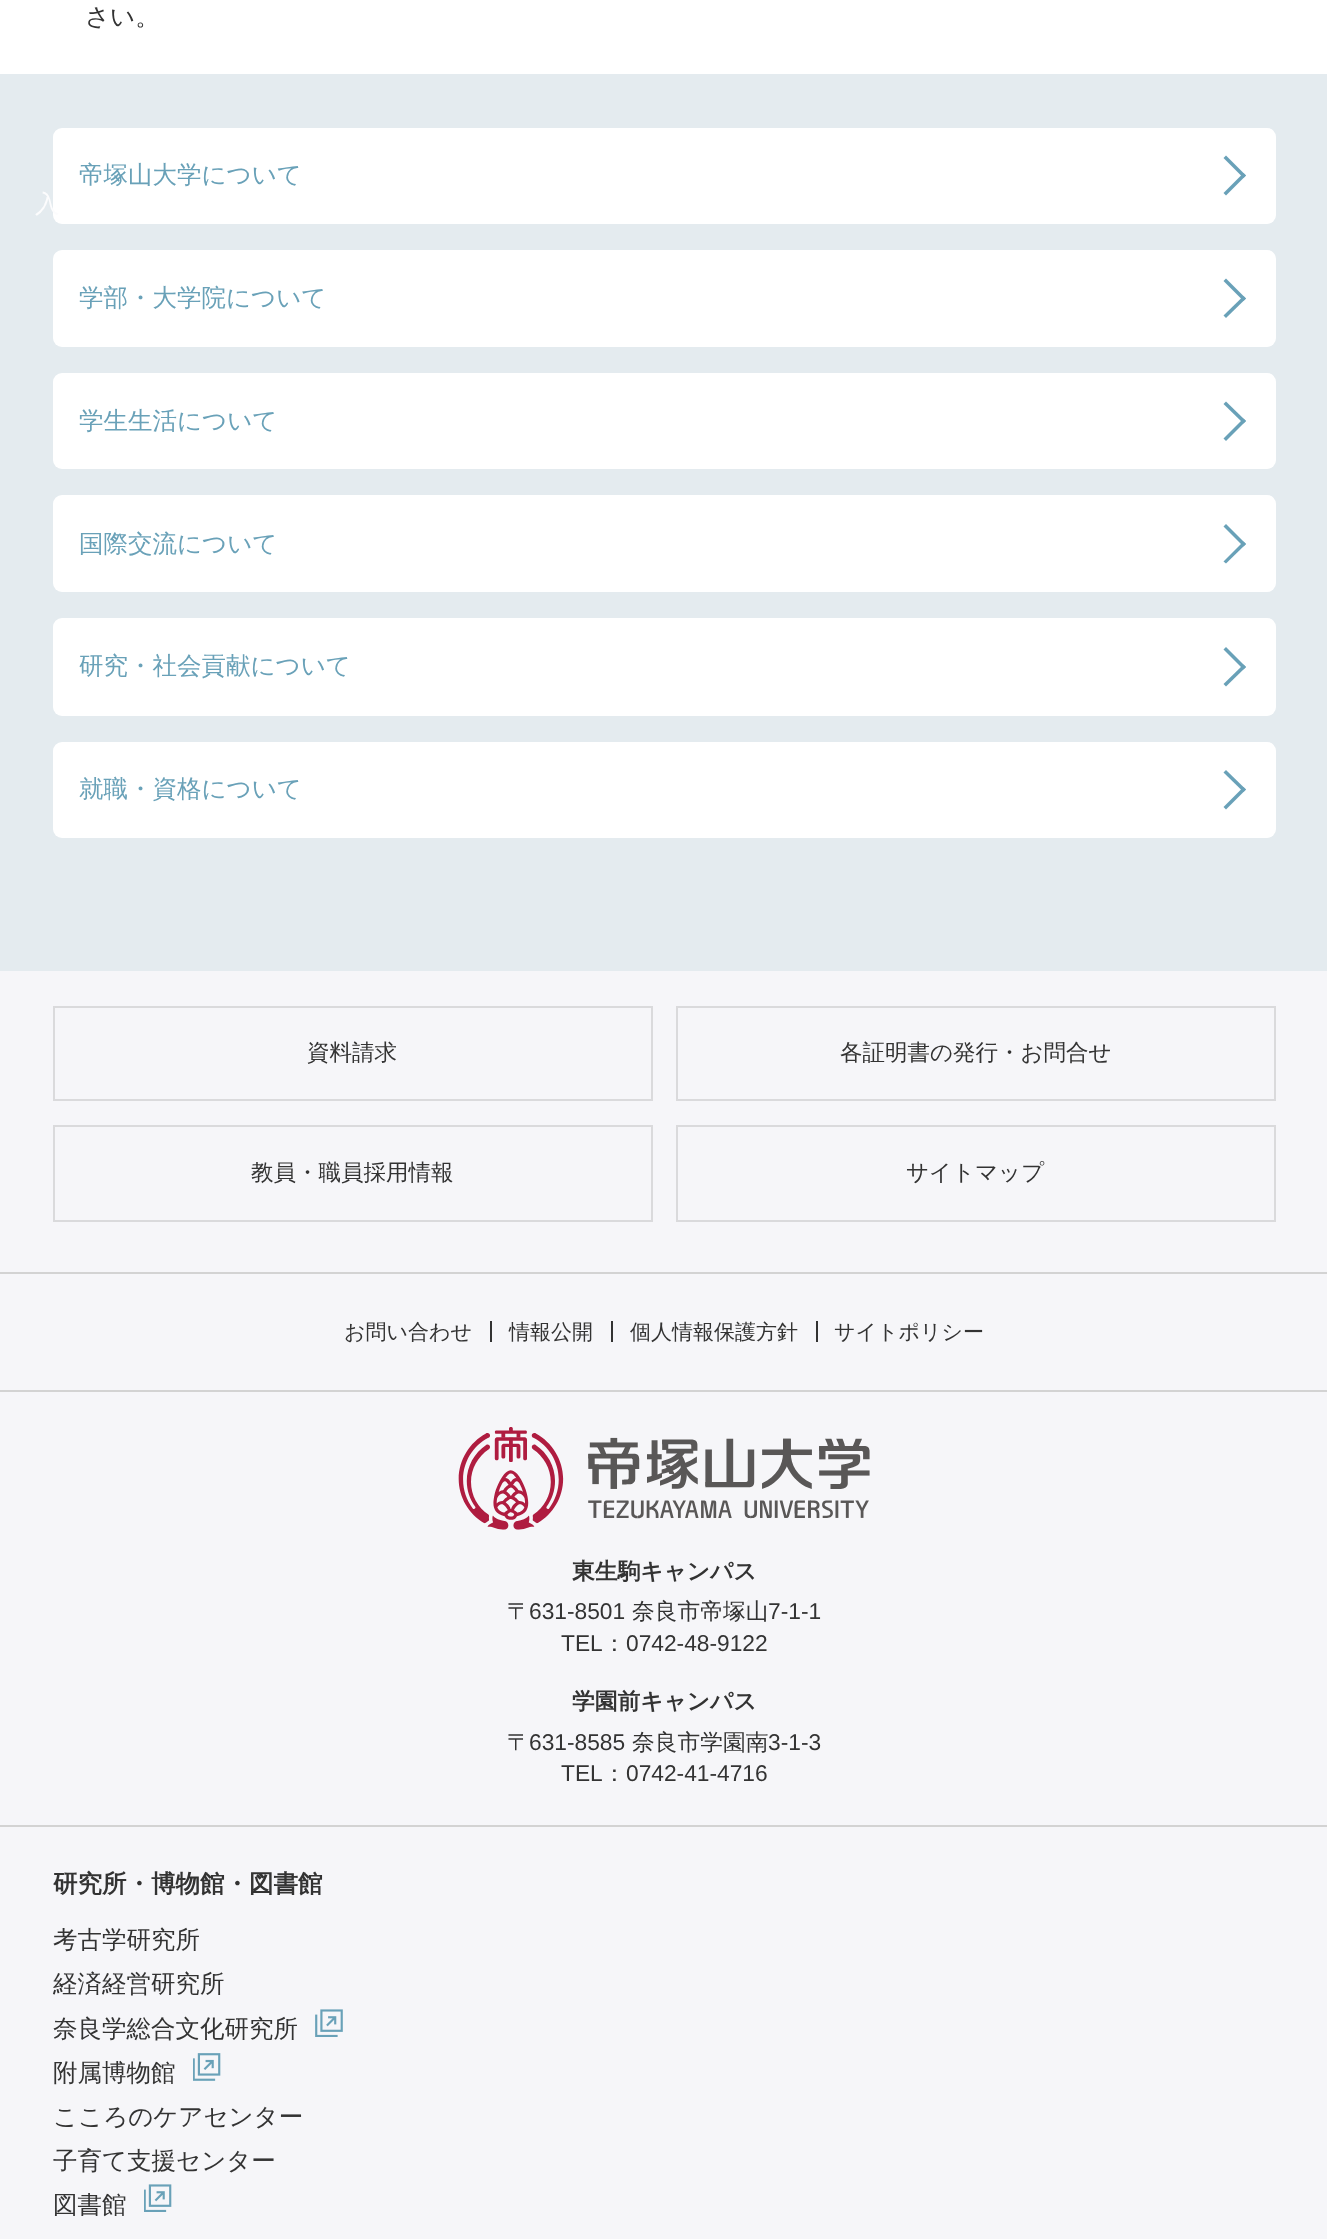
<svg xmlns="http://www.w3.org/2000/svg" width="1327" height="2239">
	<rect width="100%" height="100%" fill="#FFFFFF" />
	<text x="85" y="25" font-family="WenQuanYi Zen Hei" font-size="24.5" font-weight="500" fill="#333333">さい。</text>
	<rect x="0" y="74" width="1327" height="897" fill="#E4EBEF" />
	<rect x="53" y="128" width="1223" height="96" rx="9" fill="#FFFFFF" />
	<text x="35" y="212" font-family="WenQuanYi Zen Hei" font-size="24.5" font-weight="500" fill="#FCFCFD">入</text>
	<text x="79" y="183" font-family="WenQuanYi Zen Hei" font-size="24.5" font-weight="500" fill="#69A1B8">帝塚山大学について</text>
	<path d="M1226 155.5L1246 175.5L1243.5 178L1223.5 158Z" fill="#69A1B8" />
	<path d="M1243.5 173L1246 175.5L1226 195.5L1223.5 193Z" fill="#69A1B8" />
	<rect x="53" y="250" width="1223" height="97" rx="9" fill="#FFFFFF" />
	<text x="79" y="306" font-family="WenQuanYi Zen Hei" font-size="24.5" font-weight="500" fill="#69A1B8">学部・大学院について</text>
	<path d="M1226 278.5L1246 298.5L1243.5 301L1223.5 281Z" fill="#69A1B8" />
	<path d="M1243.5 296L1246 298.5L1226 318L1223.5 315.5Z" fill="#69A1B8" />
	<rect x="53" y="373" width="1223" height="96" rx="9" fill="#FFFFFF" />
	<text x="79" y="429" font-family="WenQuanYi Zen Hei" font-size="24.5" font-weight="500" fill="#69A1B8">学生生活について</text>
	<path d="M1226 401.5L1246 421L1243.5 423.5L1223.5 404Z" fill="#69A1B8" />
	<path d="M1243.5 418.5L1246 421L1226 441L1223.5 438.5Z" fill="#69A1B8" />
	<rect x="53" y="495" width="1223" height="97" rx="9" fill="#FFFFFF" />
	<text x="79" y="552" font-family="WenQuanYi Zen Hei" font-size="24.5" font-weight="500" fill="#69A1B8">国際交流について</text>
	<path d="M1226 524L1246 544L1243.5 546.5L1223.5 526.5Z" fill="#69A1B8" />
	<path d="M1243.5 541.5L1246 544L1226 563.5L1223.5 561.5Z" fill="#69A1B8" />
	<rect x="53" y="618" width="1223" height="98" rx="9" fill="#FFFFFF" />
	<text x="79" y="674" font-family="WenQuanYi Zen Hei" font-size="24.5" font-weight="500" fill="#69A1B8">研究・社会貢献について</text>
	<path d="M1226 647L1246 667L1243.5 669.5L1223.5 649.5Z" fill="#69A1B8" />
	<path d="M1243.5 664.5L1246 667L1226 686.5L1223.5 684Z" fill="#69A1B8" />
	<rect x="53" y="742" width="1223" height="96" rx="9" fill="#FFFFFF" />
	<text x="79" y="797" font-family="WenQuanYi Zen Hei" font-size="24.5" font-weight="500" fill="#69A1B8">就職・資格について</text>
	<path d="M1226 770L1246 789.5L1243.5 792L1223.5 772.5Z" fill="#69A1B8" />
	<path d="M1243.5 787L1246 789.5L1226 809.5L1223.5 807Z" fill="#69A1B8" />
	<rect x="0" y="971" width="1327" height="1268" fill="#F6F6F9" />
	<rect x="54" y="1007" width="598" height="93" fill="none" stroke="#DADADC" stroke-width="2" />
	<text x="307" y="1060" font-family="WenQuanYi Zen Hei" font-size="22.5" font-weight="500" fill="#333333">資料請求</text>
	<rect x="677" y="1007" width="598" height="93" fill="none" stroke="#DADADC" stroke-width="2" />
	<text x="840" y="1060" font-family="WenQuanYi Zen Hei" font-size="22.5" font-weight="500" fill="#333333">各証明書の発行・お問合せ</text>
	<rect x="54" y="1126" width="598" height="95" fill="none" stroke="#DADADC" stroke-width="2" />
	<text x="251" y="1180" font-family="WenQuanYi Zen Hei" font-size="22.5" font-weight="500" fill="#333333">教員・職員採用情報</text>
	<rect x="677" y="1126" width="598" height="95" fill="none" stroke="#DADADC" stroke-width="2" />
	<text x="906" y="1180" font-family="WenQuanYi Zen Hei" font-size="22.5" font-weight="500" fill="#333333">サイトマップ</text>
	<rect x="0" y="1272" width="1327" height="2" fill="#D3D3D3" />
	<rect x="0" y="1390" width="1327" height="2" fill="#D3D3D3" />
	<text x="344" y="1339" font-family="WenQuanYi Zen Hei" font-size="21" font-weight="500" fill="#333333">お問い合わせ</text>
	<rect x="490" y="1321" width="2" height="21" fill="#333333" />
	<text x="509" y="1339" font-family="WenQuanYi Zen Hei" font-size="21" font-weight="500" fill="#333333">情報公開</text>
	<rect x="611" y="1321" width="2" height="21" fill="#333333" />
	<text x="630" y="1339" font-family="WenQuanYi Zen Hei" font-size="21" font-weight="500" fill="#333333">個人情報保護方針</text>
	<rect x="816" y="1321" width="2" height="21" fill="#333333" />
	<text x="834" y="1339" font-family="WenQuanYi Zen Hei" font-size="21" font-weight="500" fill="#333333">サイトポリシー</text>
	<rect x="0" y="1825" width="1327" height="2" fill="#D3D3D3" />
	<image x="458" y="1427" width="412" height="103" href="assets/img1.png" />
	<text x="572" y="1579" font-family="WenQuanYi Zen Hei" font-size="22.75" font-weight="700" fill="#333333">東生駒キャンパス</text>
	<text x="507" y="1619" font-family="WenQuanYi Zen Hei" font-size="22.75" font-weight="500" fill="#333333">〒</text>
	<text x="529" y="1619" font-family="Liberation Sans" font-size="22.75" fill="#333333">631-8501</text>
	<text x="632" y="1619" font-family="WenQuanYi Zen Hei" font-size="22.75" font-weight="500" fill="#333333">奈良市帝塚山</text>
	<g font-family="Liberation Sans" font-size="22.75" fill="#333333">
		<text x="768" y="1619">7-1-1</text>
		<text x="561" y="1651">TEL</text>
	</g>
	<text x="603" y="1651" font-family="WenQuanYi Zen Hei" font-size="22.75" font-weight="500" fill="#333333">：</text>
	<text x="626" y="1651" font-family="Liberation Sans" font-size="22.75" fill="#333333">0742-48-9122</text>
	<text x="572" y="1709" font-family="WenQuanYi Zen Hei" font-size="22.75" font-weight="700" fill="#333333">学園前キャンパス</text>
	<text x="507" y="1750" font-family="WenQuanYi Zen Hei" font-size="22.75" font-weight="500" fill="#333333">〒</text>
	<text x="529" y="1750" font-family="Liberation Sans" font-size="22.75" fill="#333333">631-8585</text>
	<text x="632" y="1750" font-family="WenQuanYi Zen Hei" font-size="22.75" font-weight="500" fill="#333333">奈良市学園南</text>
	<g font-family="Liberation Sans" font-size="22.75" fill="#333333">
		<text x="768" y="1750">3-1-3</text>
		<text x="561" y="1781">TEL</text>
	</g>
	<text x="603" y="1781" font-family="WenQuanYi Zen Hei" font-size="22.75" font-weight="500" fill="#333333">：</text>
	<text x="626" y="1781" font-family="Liberation Sans" font-size="22.75" fill="#333333">0742-41-4716</text>
	<text x="53" y="1892" font-family="WenQuanYi Zen Hei" font-size="24.5" font-weight="700" fill="#333333">研究所・博物館・図書館</text>
	<g font-family="WenQuanYi Zen Hei" font-size="24.5" font-weight="500" fill="#333333">
		<text x="53" y="1948">考古学研究所</text>
		<text x="53" y="1992">経済経営研究所</text>
		<text x="53" y="2037">奈良学総合文化研究所</text>
	</g>
	<image x="315" y="2009" width="28" height="28" href="assets/img2.png" />
	<text x="53" y="2081" font-family="WenQuanYi Zen Hei" font-size="24.5" font-weight="500" fill="#333333">附属博物館</text>
	<image x="193" y="2053" width="28" height="28" href="assets/img3.png" />
	<g font-family="WenQuanYi Zen Hei" font-size="24.5" font-weight="500" fill="#333333">
		<text x="53" y="2125">こころのケアセンター</text>
		<text x="53" y="2169">子育て支援センター</text>
		<text x="53" y="2213">図書館</text>
	</g>
	<image x="144" y="2184" width="28" height="28" href="assets/img4.png" />
</svg>
